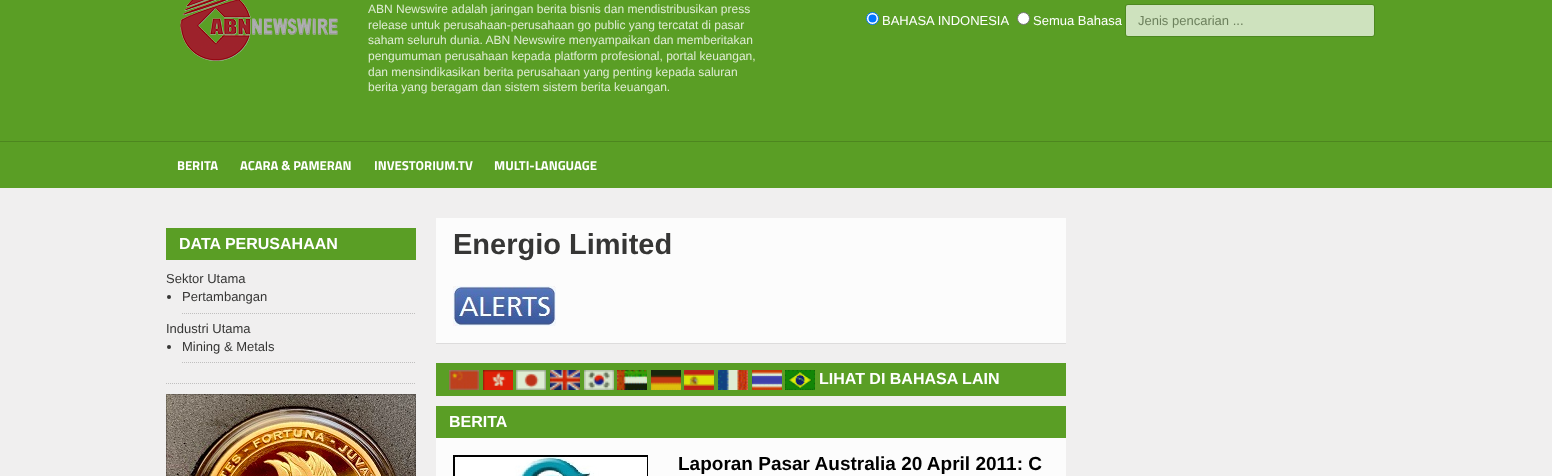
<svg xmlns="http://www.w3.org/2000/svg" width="1552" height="476">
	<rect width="100%" height="100%" fill="#F0EFEF" />
	<rect x="0" y="0" width="1552" height="188" fill="#5A9E25" />
	<image x="180" y="0" width="158" height="61" href="assets/img1.png" />
	<g font-family="Liberation Sans" font-size="12" fill="#DEECD3">
		<text x="368" y="13">ABN Newswire adalah jaringan berita bisnis dan mendistribusikan press</text>
		<text x="368" y="29">release untuk perusahaan-perusahaan go public yang tercatat di pasar</text>
		<text x="368" y="44">saham seluruh dunia. ABN Newswire menyampaikan dan memberitakan</text>
		<text x="368" y="60">pengumuman perusahaan kepada platform profesional, portal keuangan,</text>
		<text x="368" y="76">dan mensindikasikan berita perusahaan yang penting kepada saluran</text>
		<text x="368" y="91">berita yang beragam dan sistem sistem berita keuangan.</text>
	</g>
	<circle cx="872.5" cy="18.5" r="6" fill="#FFFFFF" stroke="#0075FF" />
	<circle cx="872.5" cy="18.5" r="4" fill="#0075FF" />
	<text x="882" y="25" font-family="Liberation Sans" font-size="13" fill="#FFFFFF">BAHASA INDONESIA</text>
	<circle cx="1023.5" cy="18.5" r="6" fill="#FFFFFF" stroke="#767676" />
	<text x="1033" y="25" font-family="Liberation Sans" font-size="13" fill="#FFFFFF">Semua Bahasa</text>
	<rect x="1125.5" y="4.5" width="249" height="32" rx="2.5" fill="none" stroke="#4D8820" />
	<rect x="1126" y="5" width="248" height="31" rx="2" fill="#CEE2BE" />
	<text x="1138" y="25" font-family="Liberation Sans" font-size="13" fill="#6D815D">Jenis pencarian ...</text>
	<rect x="0" y="141" width="1552" height="1" fill="#4D861F" />
	<g font-family="Titillium Web" font-size="13" font-weight="700" fill="#FFFFFF">
		<text x="177" y="170">BERITA</text>
		<text x="240" y="170">ACARA &amp; PAMERAN</text>
		<text x="374" y="170">INVESTORIUM.TV</text>
		<text x="494" y="170">MULTI-LANGUAGE</text>
	</g>
	<path d="M166 383.5H416" fill="none" stroke="#C0BFBF" stroke-dasharray="1 1" />
	<rect x="166" y="228" width="250" height="32" fill="#5A9E25" />
	<text x="179" y="249" font-family="Liberation Sans" font-size="16" font-weight="700" fill="#FFFFFF">DATA PERUSAHAAN</text>
	<text x="166" y="283" font-family="Liberation Sans" font-size="13" fill="#363635">Sektor Utama</text>
	<path d="M182 313.5H416" fill="none" stroke="#C0BFBF" stroke-dasharray="1 1" />
	<circle cx="169" cy="297" r="2" fill="#363635" />
	<g font-family="Liberation Sans" font-size="13" fill="#363635">
		<text x="182" y="301">Pertambangan</text>
		<text x="166" y="333">Industri Utama</text>
	</g>
	<path d="M182 362.5H416" fill="none" stroke="#C0BFBF" stroke-dasharray="1 1" />
	<circle cx="169" cy="347" r="2" fill="#363635" />
	<text x="182" y="351" font-family="Liberation Sans" font-size="13" fill="#363635">Mining &amp; Metals</text>
	<image x="166" y="394" width="250" height="82" href="assets/img2.png" />
	<rect x="166.5" y="394.5" width="249" height="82" fill="none" stroke="#000000" stroke-opacity="0.2" />
	<rect x="436" y="219" width="630" height="125" fill="#000000" fill-opacity="0.08" filter="blur(0.5px)" />
	<rect x="436" y="218" width="630" height="125" fill="#FCFCFC" />
	<text x="453" y="254" font-family="Liberation Sans" font-size="29" font-weight="700" fill="#363635">Energio Limited</text>
	<image x="453" y="286" width="103" height="40" href="assets/img3.png" />
	<rect x="436" y="363" width="630" height="33" fill="#5A9E25" />
	<image x="449" y="370" width="30" height="20" href="assets/img4.png" />
	<image x="483" y="370" width="30" height="20" href="assets/img5.png" />
	<image x="516" y="370" width="30" height="20" href="assets/img6.png" />
	<image x="550" y="370" width="30" height="20" href="assets/img7.png" />
	<image x="584" y="370" width="30" height="20" href="assets/img8.png" />
	<image x="617" y="370" width="30" height="20" href="assets/img9.png" />
	<image x="651" y="370" width="30" height="20" href="assets/img10.png" />
	<image x="684" y="370" width="30" height="20" href="assets/img11.png" />
	<image x="718" y="370" width="30" height="20" href="assets/img12.png" />
	<image x="752" y="370" width="30" height="20" href="assets/img13.png" />
	<image x="785" y="370" width="30" height="20" href="assets/img14.png" />
	<text x="819" y="384" font-family="Liberation Sans" font-size="16" font-weight="700" fill="#FFFFFF">LIHAT DI BAHASA LAIN</text>
	<rect x="436" y="406" width="630" height="32" fill="#5A9E25" />
	<text x="449" y="427" font-family="Liberation Sans" font-size="16" font-weight="700" fill="#FFFFFF">BERITA</text>
	<rect x="436" y="438" width="630" height="38" fill="#FCFCFC" />
	<image x="453" y="455" width="195" height="21" href="assets/img15.png" />
	<text x="678" y="470" font-family="Liberation Sans" font-size="19" font-weight="700" fill="#000000">Laporan Pasar Australia 20 April 2011: C</text>
</svg>
